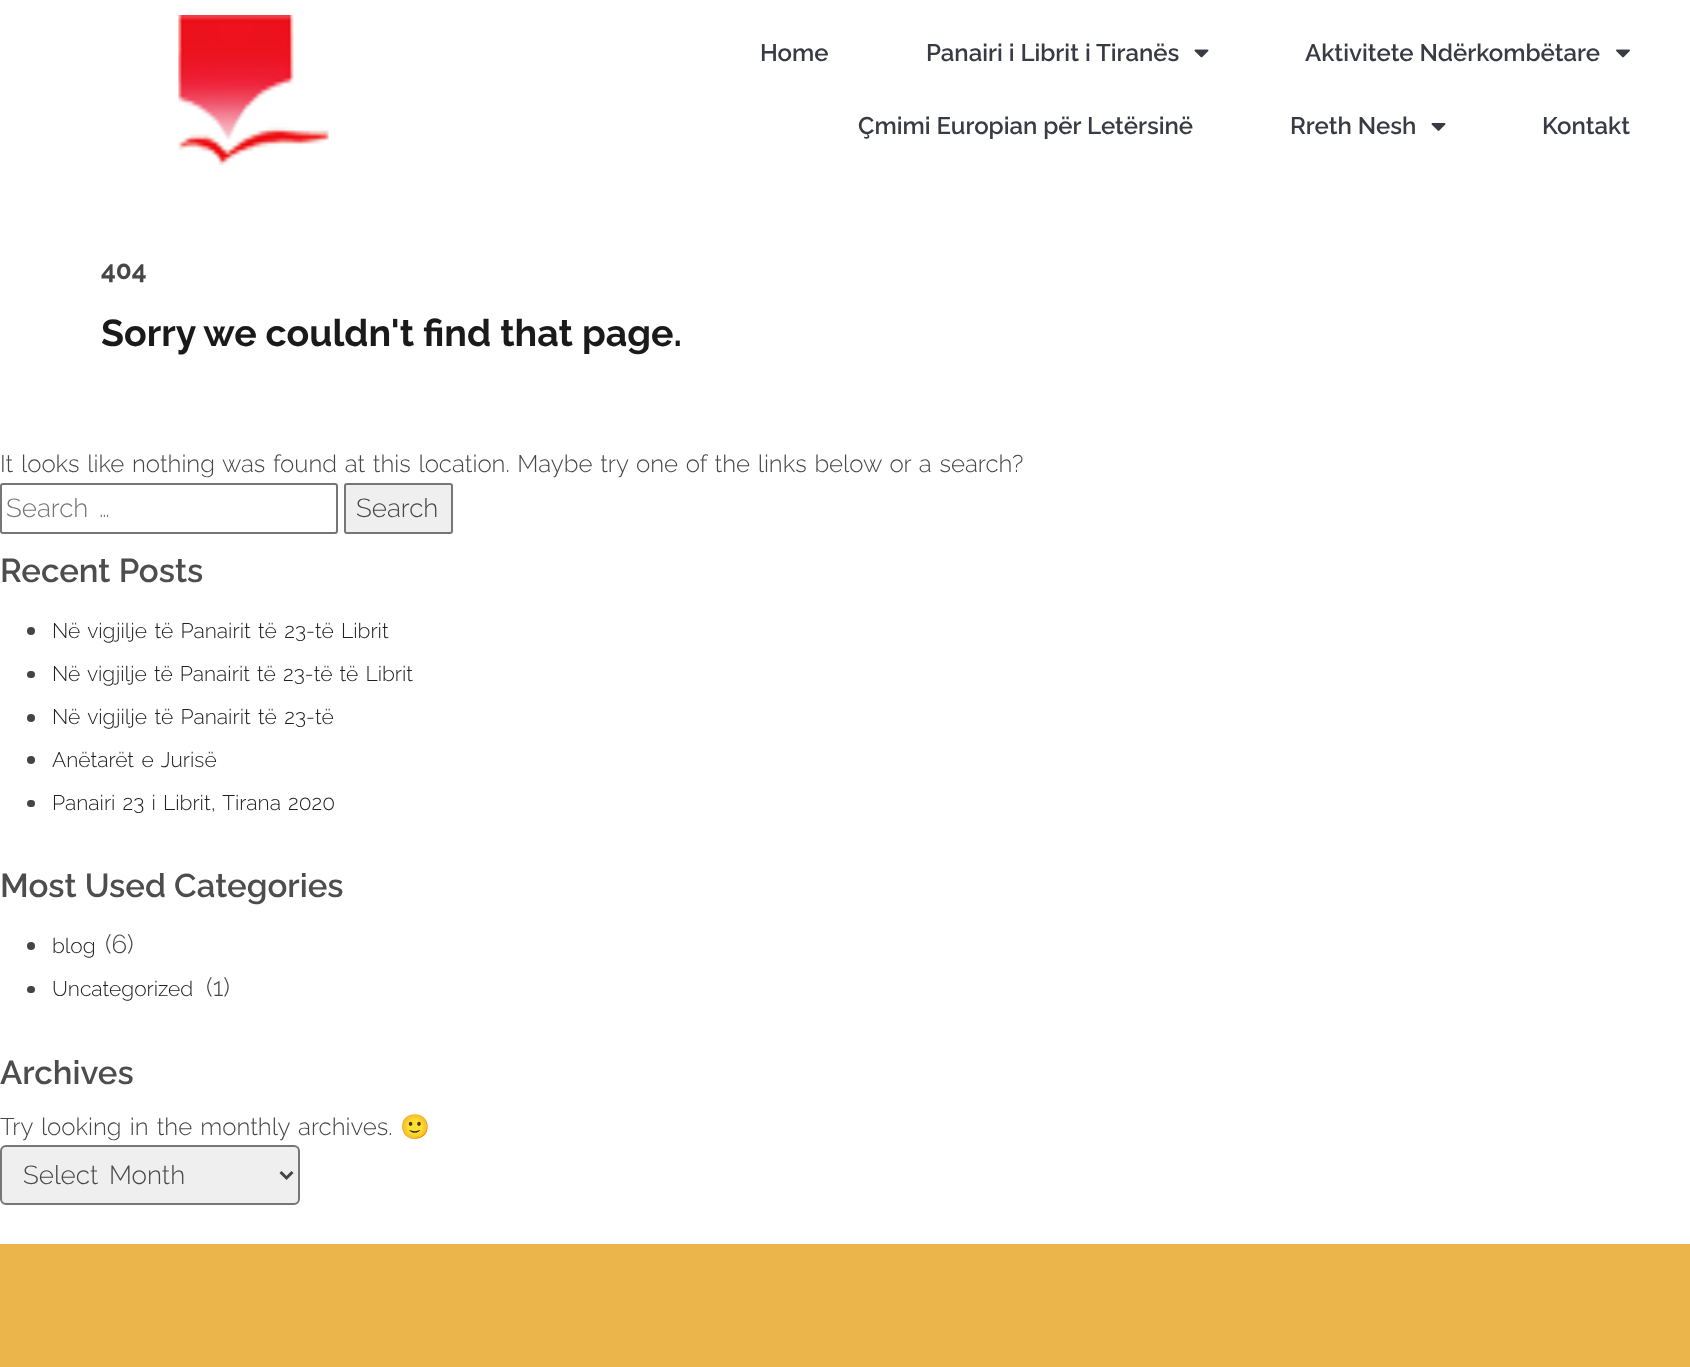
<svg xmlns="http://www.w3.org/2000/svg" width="1690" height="1367">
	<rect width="100%" height="100%" fill="#FFFFFF" />
	<image x="178" y="15" width="151" height="150" href="assets/img1.png" />
	<g font-family="Raleway" font-size="24" font-weight="600" fill="#383B43">
		<text x="760" y="61">Home</text>
		<text x="926" y="61">Panairi i Librit i Tiranës</text>
	</g>
	<image x="1194" y="49" width="15" height="9" href="assets/img2.png" />
	<text x="1305" y="61" font-family="Raleway" font-size="24" font-weight="600" fill="#383B43">Aktivitete Ndërkombëtare</text>
	<image x="1616" y="49" width="14" height="9" href="assets/img3.png" />
	<g font-family="Raleway" font-size="24" font-weight="600" fill="#383B43">
		<text x="858" y="134">Çmimi Europian për Letërsinë</text>
		<text x="1290" y="134">Rreth Nesh</text>
	</g>
	<image x="1431" y="123" width="15" height="8" href="assets/img4.png" />
	<text x="1542" y="134" font-family="Raleway" font-size="24" font-weight="600" fill="#383B43">Kontakt</text>
	<text x="101" y="279" font-family="Raleway" font-size="26" font-weight="700" fill="#474747">404</text>
	<text x="101" y="346" font-family="Raleway" font-size="37.5" font-weight="700" fill="#1A1A1A">Sorry we couldn't find that page.</text>
	<text x="0" y="472" word-spacing="1.5" font-family="Raleway" font-size="24" font-weight="300" fill="#474747">It looks like nothing was found at this location. Maybe try one of the links below or a search?</text>
	<rect x="1" y="484" width="336" height="49" rx="2" fill="none" stroke="#767676" stroke-width="2" />
	<text x="6" y="517" word-spacing="4" font-family="Raleway" font-size="26" font-weight="300" fill="#757575">Search …</text>
	<rect x="345" y="484" width="107" height="49" rx="2" fill="#EFEFEF" stroke="#767676" stroke-width="2" />
	<text x="356" y="517" font-family="Raleway" font-size="26" font-weight="300" fill="#474747">Search</text>
	<text x="0" y="582" font-family="Raleway" font-size="33" font-weight="600" fill="#4D4D4D">Recent Posts</text>
	<circle cx="31" cy="631" r="4" fill="#444444" />
	<text x="52" y="638" word-spacing="2" font-family="Raleway" font-size="21" font-weight="300" fill="#212121">Në vigjilje të Panairit të 23-të Librit</text>
	<rect x="27" y="671" width="8" height="7" rx="3.5" fill="#444444" />
	<text x="52" y="681" word-spacing="1.75" font-family="Raleway" font-size="21" font-weight="300" fill="#212121">Në vigjilje të Panairit të 23-të të Librit</text>
	<circle cx="31" cy="718" r="4" fill="#444444" />
	<text x="52" y="724" word-spacing="2" font-family="Raleway" font-size="21" font-weight="300" fill="#212121">Në vigjilje të Panairit të 23-të</text>
	<circle cx="31" cy="760" r="4" fill="#444444" />
	<text x="52" y="767" word-spacing="2" font-family="Raleway" font-size="21" font-weight="300" fill="#212121">Anëtarët e Jurisë</text>
	<rect x="27" y="800" width="8" height="7" rx="3.5" fill="#444444" />
	<text x="52" y="810" word-spacing="1.75" font-family="Raleway" font-size="21" font-weight="300" fill="#212121">Panairi 23 i Librit, Tirana 2020</text>
	<text x="0" y="897" font-family="Raleway" font-size="33" font-weight="600" fill="#4D4D4D">Most Used Categories</text>
	<circle cx="31" cy="946" r="4" fill="#444444" />
	<text x="52" y="953" font-family="Raleway" font-size="21" font-weight="300" fill="#212121">blog</text>
	<text x="105" y="953" font-family="Raleway" font-size="26" font-weight="300" fill="#474747">(6)</text>
	<rect x="27" y="986" width="8" height="7" rx="3.5" fill="#444444" />
	<text x="52" y="996" font-family="Raleway" font-size="21" font-weight="300" fill="#212121">Uncategorized</text>
	<text x="206" y="996" font-family="Raleway" font-size="26" font-weight="300" fill="#474747">(1)</text>
	<text x="0" y="1084" font-family="Raleway" font-size="33" font-weight="600" fill="#4D4D4D">Archives</text>
	<text x="0" y="1135" word-spacing="2" font-family="Raleway" font-size="24" font-weight="300" fill="#474747">Try looking in the monthly archives.</text>
	<text x="400" y="1135" font-family="Noto Color Emoji" font-size="24" fill="#474747">🙂</text>
	<rect x="1" y="1146" width="298" height="58" rx="5" fill="#EFEFEF" stroke="#767676" stroke-width="2" />
	<path d="M280.5 1172L286.5 1178L292.5 1172" fill="none" stroke="#444444" stroke-width="3" />
	<text x="23" y="1184" word-spacing="4" font-family="Raleway" font-size="26" font-weight="300" fill="#474747">Select Month</text>
	<rect x="0" y="1244" width="1690" height="123" fill="#ECB54B" />
</svg>
